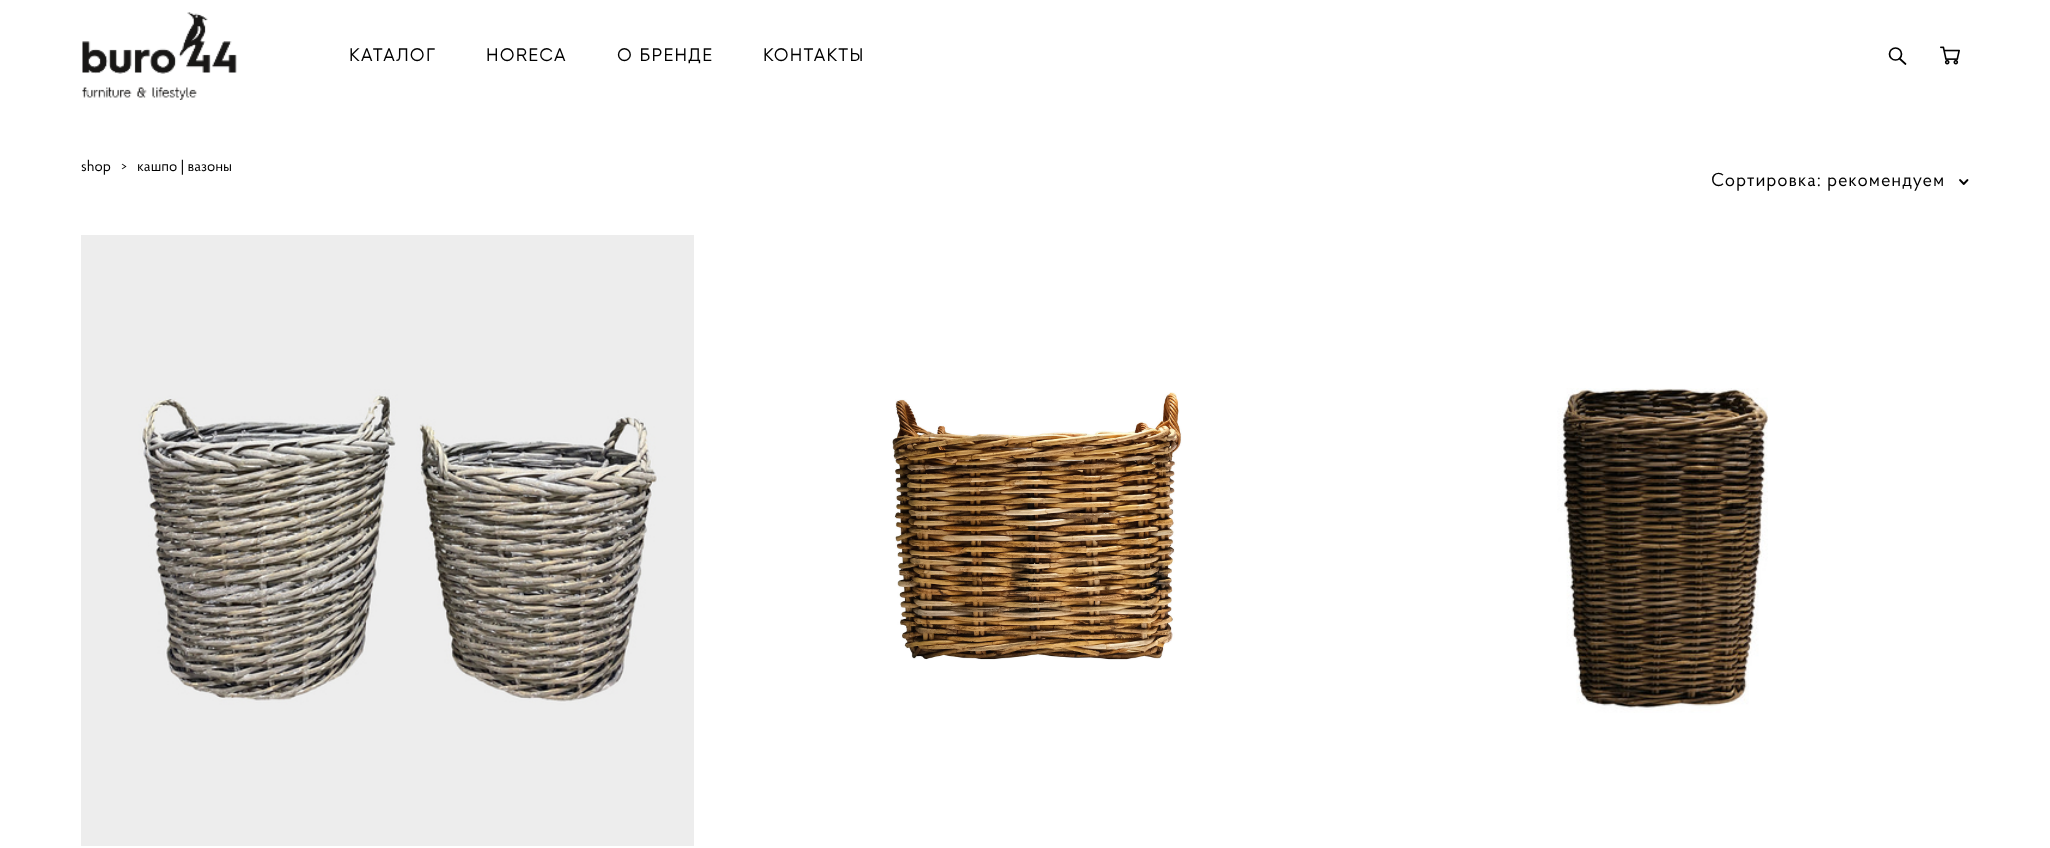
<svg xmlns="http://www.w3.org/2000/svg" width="2050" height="848">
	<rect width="100%" height="100%" fill="#FFFFFF" />
	<image x="82" y="12" width="155" height="88" href="assets/img1.png" />
	<g font-family="Gilroy" font-size="17.5" font-weight="700" letter-spacing="1.75" fill="#000000">
		<text x="349" y="61">КАТАЛОГ</text>
		<text x="486" y="61">HORECA</text>
		<text x="617" y="61">О БРЕНДЕ</text>
		<text x="763" y="61">КОНТАКТЫ</text>
	</g>
	<circle cx="1895.5" cy="54" r="6" fill="none" stroke="#000000" stroke-width="1.7" />
	<path d="M1899.5 58.5L1905.5 64" fill="none" stroke="#000000" stroke-width="1.7" stroke-linecap="round" stroke-linejoin="round" />
	<image x="1940" y="46" width="20" height="19" href="assets/img2.png" />
	<g font-family="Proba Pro" font-size="15" fill="#000000">
		<text x="81" y="171">shop</text>
		<text x="121" y="171">&gt;</text>
		<text x="137" y="171">кашпо | вазоны</text>
	</g>
	<text x="1711" y="186" font-family="Proba Pro" font-size="18.75" letter-spacing="0.9" fill="#000000">Сортировка: рекомендуем</text>
	<image x="1959" y="179" width="10" height="6" href="assets/img3.png" />
	<image x="81" y="235" width="613" height="611" href="assets/img4.png" />
	<image x="892" y="392" width="290" height="268" href="assets/img5.png" />
	<image x="1557" y="388" width="211" height="325" href="assets/img6.png" />
</svg>
